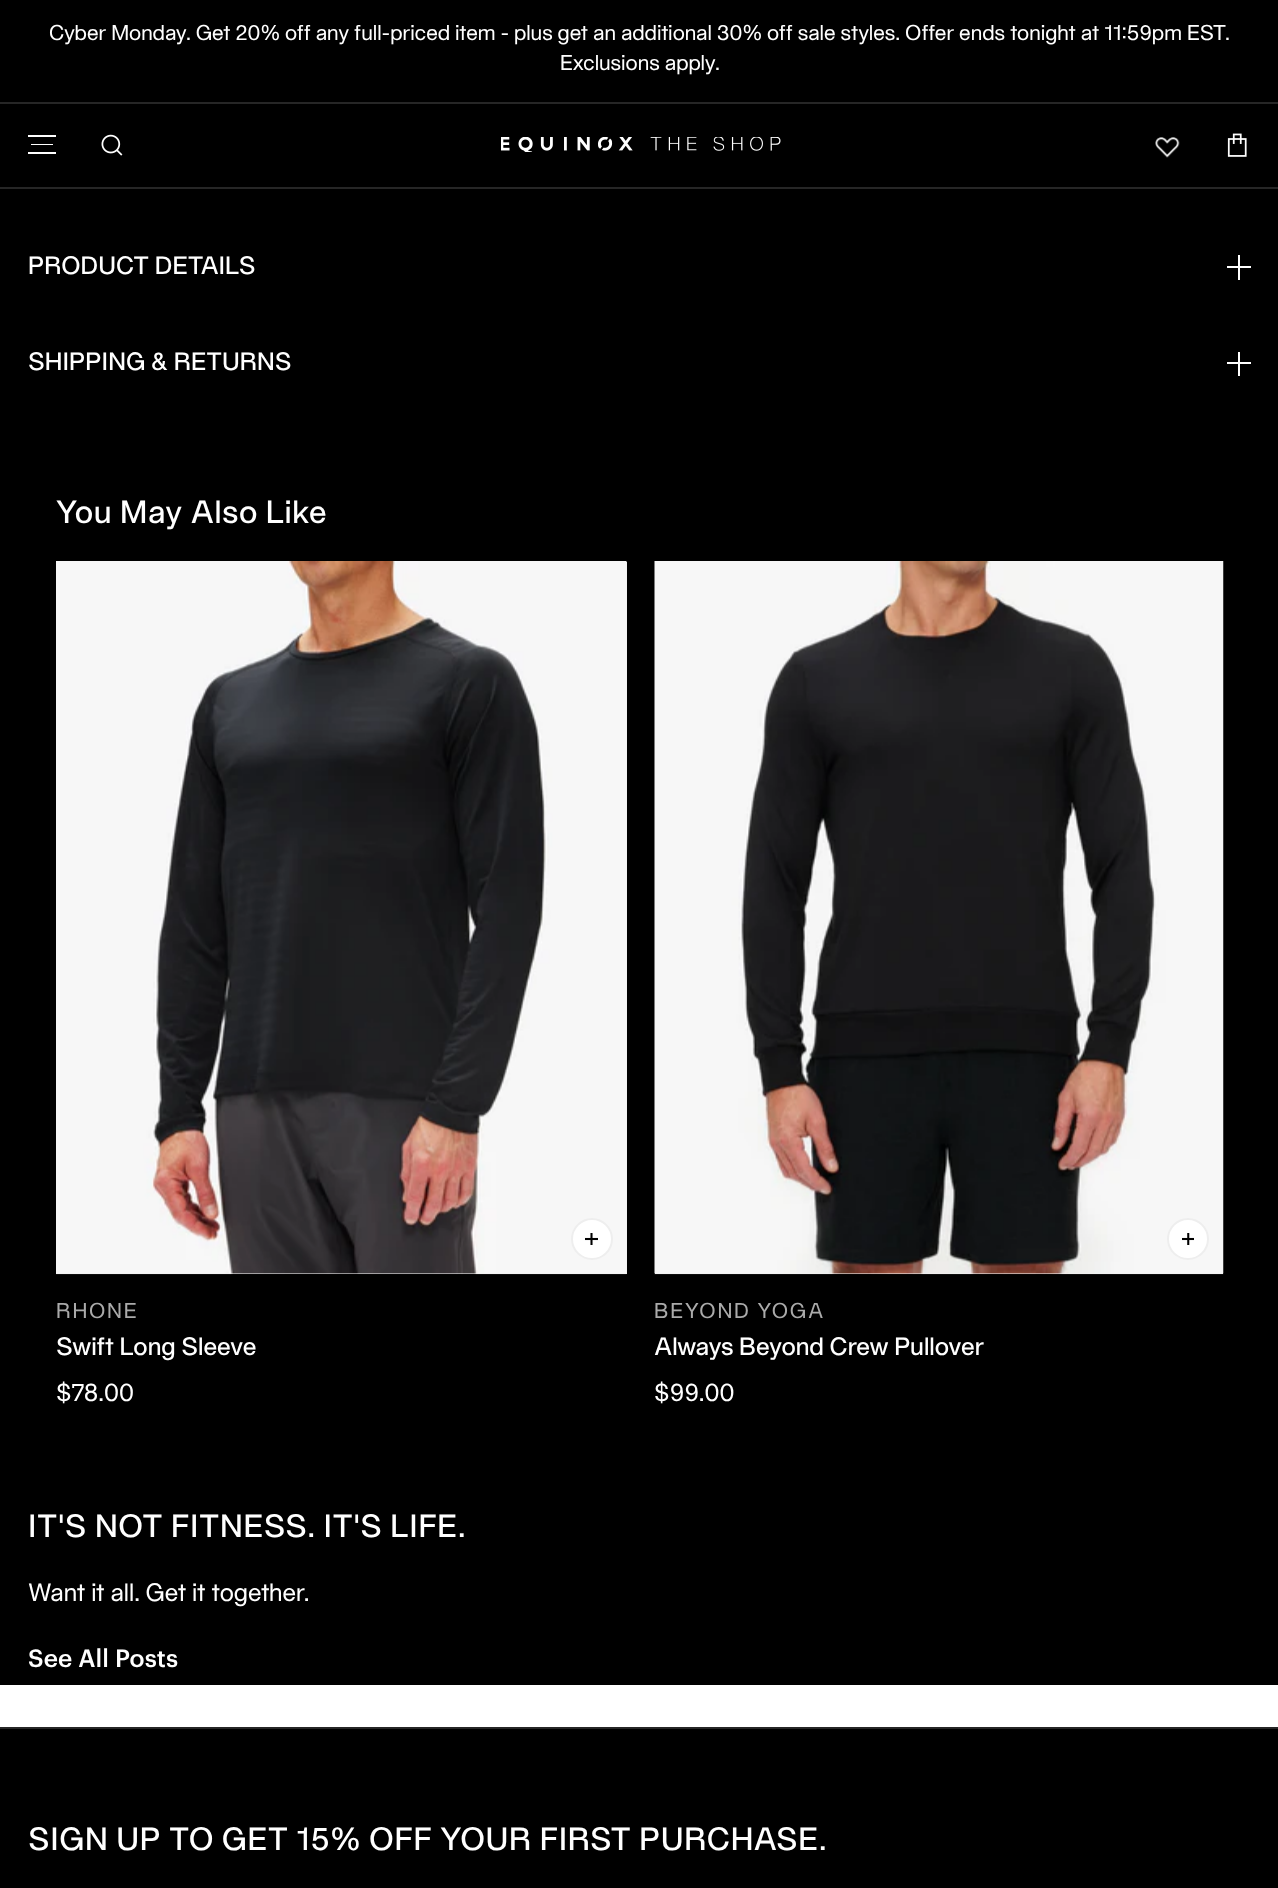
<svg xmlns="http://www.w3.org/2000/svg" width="1278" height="1888">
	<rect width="100%" height="100%" fill="#FFFFFF" />
	<rect x="0" y="0" width="1278" height="187" fill="#000000" />
	<rect x="0" y="102" width="1278" height="2" fill="#262626" />
	<g font-family="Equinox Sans" font-size="21" fill="#FFFFFF">
		<text x="49" y="40">Cyber Monday. Get 20% off any full-priced item - plus get an additional 30% off sale styles. Offer ends tonight at 11:59pm EST.</text>
		<text x="560" y="70">Exclusions apply.</text>
	</g>
	<rect x="0" y="187" width="1278" height="2" fill="#262626" />
	<rect x="28" y="135" width="28" height="2" fill="#FFFFFF" />
	<rect x="28" y="152" width="28" height="2" fill="#FFFFFF" />
	<rect x="31" y="144" width="22" height="1" fill="#FFFFFF" />
	<image x="101" y="134" width="22" height="22" href="assets/img1.png" />
	<image x="501" y="137" width="280" height="15" href="assets/img2.png" />
	<image x="1155" y="137" width="25" height="21" href="assets/img3.png" />
	<image x="1227" y="133" width="20" height="24" href="assets/img4.png" />
	<rect x="0" y="189" width="1278" height="1496" fill="#000000" />
	<text x="28" y="274" font-family="Equinox Sans" font-size="24.5" font-weight="500" fill="#FFFFFF">PRODUCT DETAILS</text>
	<rect x="1238" y="255" width="2" height="25" fill="#FFFFFF" />
	<rect x="1227" y="266" width="24" height="2" fill="#FFFFFF" />
	<text x="28" y="370" font-family="Equinox Sans" font-size="24.5" font-weight="500" fill="#FFFFFF">SHIPPING &amp; RETURNS</text>
	<rect x="1238" y="352" width="2" height="24" fill="#FFFFFF" />
	<rect x="1227" y="362" width="24" height="2" fill="#FFFFFF" />
	<text x="56" y="523" font-family="Equinox Sans" font-size="31.5" font-weight="500" letter-spacing="0.65" fill="#FFFFFF">You May Also Like</text>
	<rect x="56" y="562" width="571" height="712" fill="#F1F1F1" />
	<image x="56" y="561" width="571" height="714" href="assets/img5.png" />
	<circle cx="592" cy="1239" r="20" fill="#FFFFFF" stroke="#EEEEEE" stroke-width="2" />
	<image x="585" y="1233" width="13" height="12" href="assets/img6.png" />
	<text x="56" y="1318" font-family="Equinox Sans" font-size="21" letter-spacing="1.75" fill="#AAAAAA">RHONE</text>
	<text x="56" y="1355" font-family="Equinox Sans" font-size="24.5" font-weight="500" fill="#FFFFFF">Swift Long Sleeve</text>
	<text x="56" y="1401" font-family="Equinox Sans" font-size="24.5" fill="#FFFFFF">$78.00</text>
	<rect x="655" y="1273" width="568" height="1" fill="#F1F1F1" />
	<image x="654" y="561" width="570" height="714" href="assets/img7.png" />
	<circle cx="1188" cy="1239" r="20" fill="#FFFFFF" stroke="#EEEEEE" stroke-width="2" />
	<image x="1182" y="1233" width="12" height="12" href="assets/img8.png" />
	<text x="654" y="1318" font-family="Equinox Sans" font-size="21" letter-spacing="1.75" fill="#AAAAAA">BEYOND YOGA</text>
	<text x="654" y="1355" font-family="Equinox Sans" font-size="24.5" font-weight="500" fill="#FFFFFF">Always Beyond Crew Pullover</text>
	<text x="654" y="1401" font-family="Equinox Sans" font-size="24.5" fill="#FFFFFF">$99.00</text>
	<text x="28" y="1537" font-family="Equinox Sans" font-size="31.5" font-weight="500" letter-spacing="0.65" fill="#FFFFFF">IT'S NOT FITNESS. IT'S LIFE.</text>
	<text x="28" y="1601" font-family="Equinox Sans" font-size="24.5" fill="#FFFFFF">Want it all. Get it together.</text>
	<text x="28" y="1667" font-family="Graphik" font-size="24.5" font-weight="500" fill="#FFFFFF">See All Posts</text>
	<rect x="0" y="1729" width="1278" height="159" fill="#000000" />
	<rect x="0" y="1727" width="1278" height="2" fill="#262626" />
	<text x="28" y="1850" font-family="Equinox Sans" font-size="31.5" font-weight="500" letter-spacing="0.65" fill="#FFFFFF">SIGN UP TO GET 15% OFF YOUR FIRST PURCHASE.</text>
</svg>
